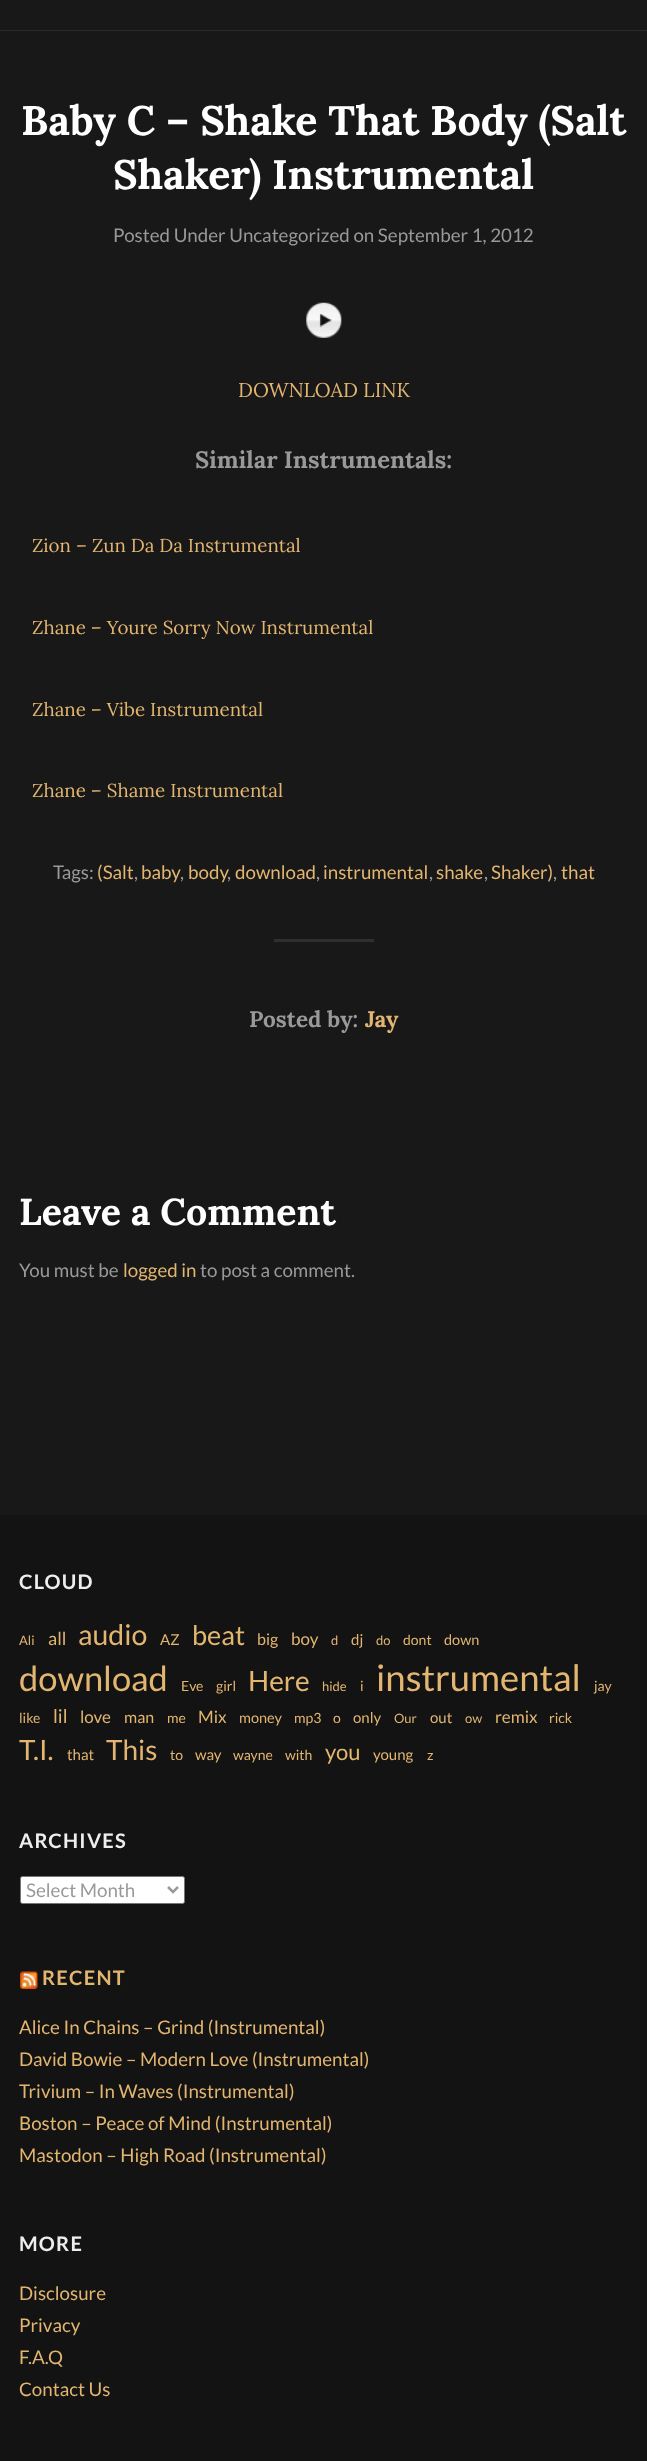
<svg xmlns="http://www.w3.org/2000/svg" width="647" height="2461">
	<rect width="100%" height="100%" fill="#181818" />
	<rect x="0" y="30" width="647" height="1" fill="#2B2929" />
	<g font-family="Lora" font-size="41.25" font-weight="700" fill="#FFFFFF">
		<text x="21" y="135">Baby C – Shake That Body (Salt</text>
		<text x="113" y="189">Shaker) Instrumental</text>
	</g>
	<text x="113" y="242" font-family="Lato" font-size="18.75" fill="#999999">Posted Under Uncategorized on September 1, 2012</text>
	<image x="306" y="302" width="36" height="36" href="assets/img1.png" />
	<text x="238" y="397" font-family="Lora" font-size="20" fill="#E2B570">DOWNLOAD LINK</text>
	<text x="195" y="468" font-family="Lora" font-size="23.75" font-weight="700" fill="#999999">Similar Instrumentals:</text>
	<g font-family="Lora" font-size="18.75" fill="#E2B570">
		<text x="32" y="552">Zion – Zun Da Da Instrumental</text>
		<text x="32" y="634">Zhane – Youre Sorry Now Instrumental</text>
		<text x="32" y="716">Zhane – Vibe Instrumental</text>
		<text x="32" y="797">Zhane – Shame Instrumental</text>
	</g>
	<text x="53" y="879" font-family="Lato" font-size="18.75" fill="#999999">Tags:</text>
	<text x="97" y="879" font-family="Lato" font-size="18.75" fill="#E2B570">(Salt</text>
	<text x="134" y="879" font-family="Lato" font-size="18.75" fill="#999999">,</text>
	<g font-family="Lato" font-size="18.75" fill="#E2B570">
		<text x="141" y="879">baby</text>
		<text x="188" y="879">body</text>
		<text x="235" y="879">download</text>
		<text x="323" y="879">instrumental</text>
		<text x="436" y="879">shake</text>
		<text x="491" y="879">Shaker)</text>
		<text x="561" y="879">that</text>
	</g>
	<g font-family="Lato" font-size="18.75" fill="#999999">
		<text x="180" y="879">,</text>
		<text x="227" y="879">,</text>
		<text x="316" y="879">,</text>
		<text x="429" y="879">,</text>
		<text x="484" y="879">,</text>
		<text x="553" y="879">,</text>
	</g>
	<rect x="274" y="939" width="100" height="3" fill="#302E2E" />
	<text x="249" y="1027" font-family="Lora" font-size="22.5" font-weight="700" fill="#999999">Posted by:</text>
	<text x="365" y="1027" font-family="Lora" font-size="22.5" font-weight="700" fill="#E2B570">Jay</text>
	<text x="19" y="1225" font-family="Lora" font-size="37.5" font-weight="700" fill="#FFFFFF">Leave a Comment</text>
	<text x="19" y="1277" font-family="Lato" font-size="18.75" fill="#999999">You must be</text>
	<text x="123" y="1277" font-family="Lato" font-size="18.75" fill="#E2B570">logged in</text>
	<text x="200" y="1277" font-family="Lato" font-size="18.75" fill="#999999">to post a comment.</text>
	<rect x="0" y="1515" width="647" height="946" fill="#131313" />
	<text x="19" y="1589" font-family="Lato" font-size="20" font-weight="700" letter-spacing="1.25" fill="#EEEEEE">CLOUD</text>
	<text x="19" y="1645" font-family="Lato" font-size="13" fill="#E2B570">Ali</text>
	<text x="48" y="1645" font-family="Lato" font-size="18" fill="#E2B570">all</text>
	<text x="78" y="1645" font-family="Lato" font-size="28.5" fill="#E2B570">audio</text>
	<text x="160" y="1645" font-family="Lato" font-size="15" fill="#E2B570">AZ</text>
	<text x="192" y="1645" font-family="Lato" font-size="27" fill="#E2B570">beat</text>
	<text x="257" y="1645" font-family="Lato" font-size="16" fill="#E2B570">big</text>
	<text x="291" y="1645" font-family="Lato" font-size="17" fill="#E2B570">boy</text>
	<text x="331" y="1645" font-family="Lato" font-size="13" fill="#E2B570">d</text>
	<text x="351" y="1645" font-family="Lato" font-size="15" fill="#E2B570">dj</text>
	<text x="376" y="1645" font-family="Lato" font-size="13" fill="#E2B570">do</text>
	<text x="403" y="1645" font-family="Lato" font-size="14" fill="#E2B570">dont</text>
	<text x="444" y="1645" font-family="Lato" font-size="14.5" fill="#E2B570">down</text>
	<text x="19" y="1691" font-family="Lato" font-size="34.5" fill="#E2B570">download</text>
	<g font-family="Lato" font-size="14" fill="#E2B570">
		<text x="181" y="1691">Eve</text>
		<text x="216" y="1691">girl</text>
	</g>
	<text x="248" y="1691" font-family="Lato" font-size="28" fill="#E2B570">Here</text>
	<text x="322" y="1691" font-family="Lato" font-size="13" fill="#E2B570">hide</text>
	<text x="360" y="1691" font-family="Lato" font-size="14" fill="#E2B570">i</text>
	<text x="376" y="1691" font-family="Lato" font-size="36.5" fill="#E2B570">instrumental</text>
	<g font-family="Lato" font-size="14" fill="#E2B570">
		<text x="594" y="1691">jay</text>
		<text x="19" y="1723">like</text>
	</g>
	<text x="53" y="1723" font-family="Lato" font-size="19" fill="#E2B570">lil</text>
	<text x="80" y="1723" font-family="Lato" font-size="17" fill="#E2B570">love</text>
	<text x="124" y="1723" font-family="Lato" font-size="16" fill="#E2B570">man</text>
	<text x="167" y="1723" font-family="Lato" font-size="14" fill="#E2B570">me</text>
	<text x="198" y="1723" font-family="Lato" font-size="17" fill="#E2B570">Mix</text>
	<text x="239" y="1723" font-family="Lato" font-size="14.5" fill="#E2B570">money</text>
	<g font-family="Lato" font-size="14" fill="#E2B570">
		<text x="294" y="1723">mp3</text>
		<text x="333" y="1723">o</text>
	</g>
	<text x="353" y="1723" font-family="Lato" font-size="15" fill="#E2B570">only</text>
	<text x="394" y="1723" font-family="Lato" font-size="13" fill="#E2B570">Our</text>
	<text x="430" y="1723" font-family="Lato" font-size="15" fill="#E2B570">out</text>
	<text x="465" y="1723" font-family="Lato" font-size="13" fill="#E2B570">ow</text>
	<text x="495" y="1723" font-family="Lato" font-size="17" fill="#E2B570">remix</text>
	<text x="549" y="1723" font-family="Lato" font-size="14" fill="#E2B570">rick</text>
	<text x="19" y="1760" font-family="Lato" font-size="28" fill="#E2B570">T.I.</text>
	<text x="67" y="1760" font-family="Lato" font-size="15" fill="#E2B570">that</text>
	<text x="106" y="1760" font-family="Lato" font-size="28" fill="#E2B570">This</text>
	<text x="170" y="1760" font-family="Lato" font-size="14" fill="#E2B570">to</text>
	<text x="195" y="1760" font-family="Lato" font-size="15" fill="#E2B570">way</text>
	<g font-family="Lato" font-size="14" fill="#E2B570">
		<text x="233" y="1760">wayne</text>
		<text x="285" y="1760">with</text>
	</g>
	<text x="325" y="1760" font-family="Lato" font-size="22" fill="#E2B570">you</text>
	<text x="373" y="1760" font-family="Lato" font-size="15" fill="#E2B570">young</text>
	<text x="427" y="1760" font-family="Lato" font-size="14" fill="#E2B570">z</text>
	<text x="19" y="1848" font-family="Lato" font-size="20" font-weight="700" letter-spacing="1.25" fill="#EEEEEE">ARCHIVES</text>
	<rect x="20.5" y="1876.5" width="164" height="27" rx="2" fill="#FFFFFF" stroke="#767676" />
	<path d="M168 1887L173 1892L178 1887" fill="none" stroke="#999999" stroke-width="2.5" />
	<text x="26" y="1897" font-family="Lato" font-size="18.75" fill="#999999">Select Month</text>
	<image x="20" y="1971" width="18" height="18" href="assets/img2.png" />
	<text x="42" y="1985" font-family="Lato" font-size="20" font-weight="700" letter-spacing="1.25" fill="#E2B570">RECENT</text>
	<g font-family="Lato" font-size="18.75" fill="#E2B570">
		<text x="19" y="2034">Alice In Chains – Grind (Instrumental)</text>
		<text x="19" y="2066">David Bowie – Modern Love (Instrumental)</text>
		<text x="19" y="2098">Trivium – In Waves (Instrumental)</text>
		<text x="19" y="2130">Boston – Peace of Mind (Instrumental)</text>
		<text x="19" y="2162">Mastodon – High Road (Instrumental)</text>
	</g>
	<text x="19" y="2251" font-family="Lato" font-size="20" font-weight="700" letter-spacing="1.25" fill="#EEEEEE">MORE</text>
	<g font-family="Lato" font-size="18.75" fill="#E2B570">
		<text x="19" y="2300">Disclosure</text>
		<text x="19" y="2332">Privacy</text>
		<text x="19" y="2364">F.A.Q</text>
		<text x="19" y="2396">Contact Us</text>
	</g>
</svg>
